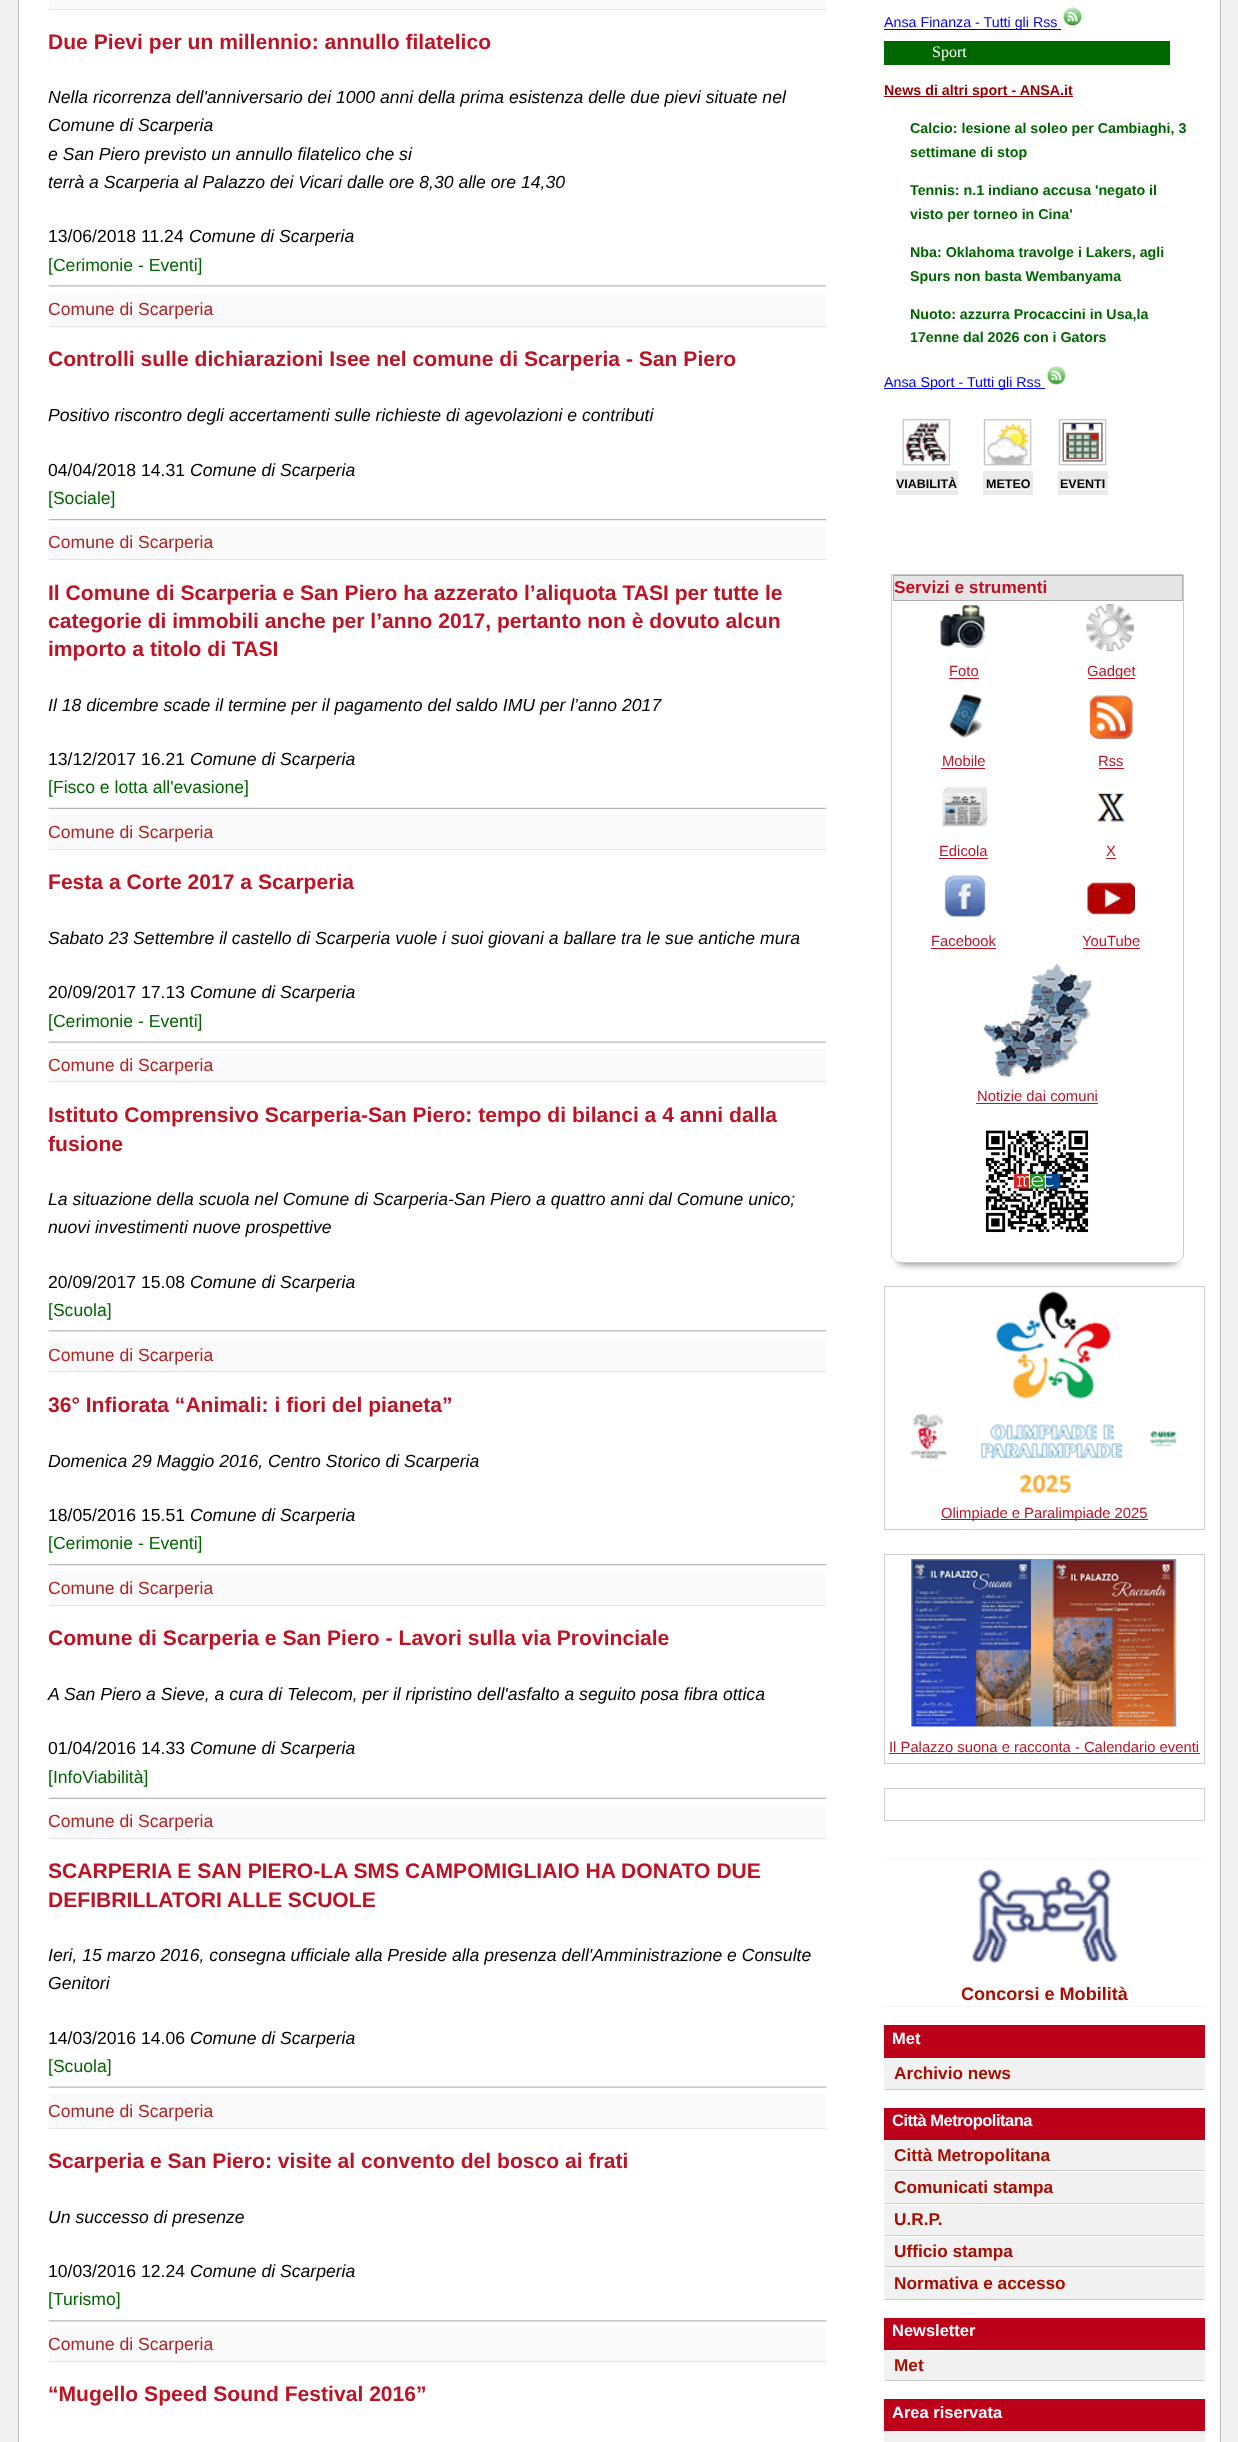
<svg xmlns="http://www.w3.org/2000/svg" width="1238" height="2442">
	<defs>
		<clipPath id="clip1"><path d="M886 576H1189V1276H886ZM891 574H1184V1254C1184 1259 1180 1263 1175 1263H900C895 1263 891 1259 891 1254Z" clip-rule="evenodd" /></clipPath>
	</defs>
	<rect width="100%" height="100%" fill="#F1F1F1" />
	<rect x="18.5" y="-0.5" width="1202" height="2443" fill="#FFFFFF" stroke="#BBBBBB" />
	<rect x="49" y="0" width="777" height="9" fill="#FAFAFA" />
	<rect x="49" y="9" width="777" height="1" fill="#E4E4E4" />
	<text x="48" y="49" font-family="Liberation Sans" font-size="21.1" font-weight="700" fill="#BC1425">Due Pievi per un millennio: annullo filatelico</text>
	<g font-family="Liberation Sans" font-size="17.6" font-style="italic" fill="#010101">
		<text x="48" y="103">Nella ricorrenza dell'anniversario dei 1000 anni della prima esistenza delle due pievi situate nel</text>
		<text x="48" y="131">Comune di Scarperia</text>
		<text x="48" y="160">e San Piero previsto un annullo filatelico che si</text>
		<text x="48" y="188">terrà a Scarperia al Palazzo dei Vicari dalle ore 8,30 alle ore 14,30</text>
	</g>
	<text x="48" y="242" font-family="Liberation Sans" font-size="17.6" fill="#010101">13/06/2018 11.24</text>
	<text x="189" y="242" font-family="Liberation Sans" font-size="17.6" font-style="italic" fill="#010101">Comune di Scarperia</text>
	<text x="48" y="271" font-family="Liberation Sans" font-size="17.6" fill="#006400">[Cerimonie - Eventi]</text>
	<image x="48" y="285" width="779" height="2" href="assets/img1.png" />
	<rect x="49" y="293" width="777" height="35" fill="#FAFAFA" />
	<rect x="49" y="326" width="777" height="1" fill="#E4E4E4" />
	<text x="48" y="315" font-family="Liberation Sans" font-size="17.6" fill="#B22222">Comune di Scarperia</text>
	<text x="48" y="366" font-family="Liberation Sans" font-size="21.1" font-weight="700" fill="#BC1425">Controlli sulle dichiarazioni Isee nel comune di Scarperia - San Piero</text>
	<text x="48" y="421" font-family="Liberation Sans" font-size="17.6" font-style="italic" fill="#010101">Positivo riscontro degli accertamenti sulle richieste di agevolazioni e contributi</text>
	<text x="48" y="476" font-family="Liberation Sans" font-size="17.6" fill="#010101">04/04/2018 14.31</text>
	<text x="190" y="476" font-family="Liberation Sans" font-size="17.6" font-style="italic" fill="#010101">Comune di Scarperia</text>
	<text x="48" y="504" font-family="Liberation Sans" font-size="17.6" fill="#006400">[Sociale]</text>
	<image x="48" y="519" width="779" height="2" href="assets/img2.png" />
	<rect x="49" y="526" width="777" height="33" fill="#FAFAFA" />
	<rect x="49" y="559" width="777" height="1" fill="#E4E4E4" />
	<text x="48" y="548" font-family="Liberation Sans" font-size="17.6" fill="#B22222">Comune di Scarperia</text>
	<g font-family="Liberation Sans" font-size="21.1" font-weight="700" fill="#BC1425">
		<text x="48" y="600">Il Comune di Scarperia e San Piero ha azzerato l’aliquota TASI per tutte le</text>
		<text x="48" y="628">categorie di immobili anche per l’anno 2017, pertanto non è dovuto alcun</text>
		<text x="48" y="656">importo a titolo di TASI</text>
	</g>
	<text x="48" y="711" font-family="Liberation Sans" font-size="17.6" font-style="italic" fill="#010101">Il 18 dicembre scade il termine per il pagamento del saldo IMU per l’anno 2017</text>
	<text x="48" y="765" font-family="Liberation Sans" font-size="17.6" fill="#010101">13/12/2017 16.21</text>
	<text x="190" y="765" font-family="Liberation Sans" font-size="17.6" font-style="italic" fill="#010101">Comune di Scarperia</text>
	<text x="48" y="793" font-family="Liberation Sans" font-size="17.6" fill="#006400">[Fisco e lotta all'evasione]</text>
	<image x="48" y="807" width="779" height="2" href="assets/img3.png" />
	<rect x="49" y="815" width="777" height="34" fill="#FAFAFA" />
	<rect x="49" y="849" width="777" height="1" fill="#E4E4E4" />
	<text x="48" y="838" font-family="Liberation Sans" font-size="17.6" fill="#B22222">Comune di Scarperia</text>
	<text x="48" y="889" font-family="Liberation Sans" font-size="21.1" font-weight="700" fill="#BC1425">Festa a Corte 2017 a Scarperia</text>
	<text x="48" y="944" font-family="Liberation Sans" font-size="17.6" font-style="italic" fill="#010101">Sabato 23 Settembre il castello di Scarperia vuole i suoi giovani a ballare tra le sue antiche mura</text>
	<text x="48" y="998" font-family="Liberation Sans" font-size="17.6" fill="#010101">20/09/2017 17.13</text>
	<text x="190" y="998" font-family="Liberation Sans" font-size="17.6" font-style="italic" fill="#010101">Comune di Scarperia</text>
	<text x="48" y="1027" font-family="Liberation Sans" font-size="17.6" fill="#006400">[Cerimonie - Eventi]</text>
	<image x="48" y="1041" width="779" height="2" href="assets/img4.png" />
	<rect x="49" y="1049" width="777" height="34" fill="#FAFAFA" />
	<rect x="49" y="1081" width="777" height="1" fill="#E4E4E4" />
	<text x="48" y="1071" font-family="Liberation Sans" font-size="17.6" fill="#B22222">Comune di Scarperia</text>
	<g font-family="Liberation Sans" font-size="21.1" font-weight="700" fill="#BC1425">
		<text x="48" y="1122">Istituto Comprensivo Scarperia-San Piero: tempo di bilanci a 4 anni dalla</text>
		<text x="48" y="1151">fusione</text>
	</g>
	<g font-family="Liberation Sans" font-size="17.6" font-style="italic" fill="#010101">
		<text x="48" y="1205">La situazione della scuola nel Comune di Scarperia-San Piero a quattro anni dal Comune unico;</text>
		<text x="48" y="1233">nuovi investimenti nuove prospettive</text>
	</g>
	<text x="48" y="1288" font-family="Liberation Sans" font-size="17.6" fill="#010101">20/09/2017 15.08</text>
	<text x="190" y="1288" font-family="Liberation Sans" font-size="17.6" font-style="italic" fill="#010101">Comune di Scarperia</text>
	<text x="48" y="1316" font-family="Liberation Sans" font-size="17.6" fill="#006400">[Scuola]</text>
	<image x="48" y="1330" width="779" height="2" href="assets/img1.png" />
	<rect x="49" y="1338" width="777" height="35" fill="#FAFAFA" />
	<rect x="49" y="1371" width="777" height="1" fill="#E4E4E4" />
	<text x="48" y="1361" font-family="Liberation Sans" font-size="17.6" fill="#B22222">Comune di Scarperia</text>
	<text x="48" y="1412" font-family="Liberation Sans" font-size="21.1" font-weight="700" fill="#BC1425">36° Infiorata “Animali: i fiori del pianeta”</text>
	<text x="48" y="1467" font-family="Liberation Sans" font-size="17.6" font-style="italic" fill="#010101">Domenica 29 Maggio 2016, Centro Storico di Scarperia</text>
	<text x="48" y="1521" font-family="Liberation Sans" font-size="17.6" fill="#010101">18/05/2016 15.51</text>
	<text x="190" y="1521" font-family="Liberation Sans" font-size="17.6" font-style="italic" fill="#010101">Comune di Scarperia</text>
	<text x="48" y="1549" font-family="Liberation Sans" font-size="17.6" fill="#006400">[Cerimonie - Eventi]</text>
	<image x="48" y="1564" width="779" height="2" href="assets/img2.png" />
	<rect x="49" y="1571" width="777" height="34" fill="#FAFAFA" />
	<rect x="49" y="1605" width="777" height="1" fill="#E4E4E4" />
	<text x="48" y="1594" font-family="Liberation Sans" font-size="17.6" fill="#B22222">Comune di Scarperia</text>
	<text x="48" y="1645" font-family="Liberation Sans" font-size="21.1" font-weight="700" fill="#BC1425">Comune di Scarperia e San Piero - Lavori sulla via Provinciale</text>
	<text x="48" y="1700" font-family="Liberation Sans" font-size="17.6" font-style="italic" fill="#010101">A San Piero a Sieve, a cura di Telecom, per il ripristino dell'asfalto a seguito posa fibra ottica</text>
	<text x="48" y="1754" font-family="Liberation Sans" font-size="17.6" fill="#010101">01/04/2016 14.33</text>
	<text x="190" y="1754" font-family="Liberation Sans" font-size="17.6" font-style="italic" fill="#010101">Comune di Scarperia</text>
	<text x="48" y="1783" font-family="Liberation Sans" font-size="17.6" fill="#006400">[InfoViabilità]</text>
	<image x="48" y="1797" width="779" height="2" href="assets/img3.png" />
	<rect x="49" y="1805" width="777" height="33" fill="#FAFAFA" />
	<rect x="49" y="1838" width="777" height="1" fill="#E4E4E4" />
	<text x="48" y="1827" font-family="Liberation Sans" font-size="17.6" fill="#B22222">Comune di Scarperia</text>
	<g font-family="Liberation Sans" font-size="21.1" font-weight="700" fill="#BC1425">
		<text x="48" y="1878">SCARPERIA E SAN PIERO-LA SMS CAMPOMIGLIAIO HA DONATO DUE</text>
		<text x="48" y="1907">DEFIBRILLATORI ALLE SCUOLE</text>
	</g>
	<g font-family="Liberation Sans" font-size="17.6" font-style="italic" fill="#010101">
		<text x="48" y="1961">Ieri, 15 marzo 2016, consegna ufficiale alla Preside alla presenza dell'Amministrazione e Consulte</text>
		<text x="48" y="1989">Genitori</text>
	</g>
	<text x="48" y="2044" font-family="Liberation Sans" font-size="17.6" fill="#010101">14/03/2016 14.06</text>
	<text x="190" y="2044" font-family="Liberation Sans" font-size="17.6" font-style="italic" fill="#010101">Comune di Scarperia</text>
	<text x="48" y="2072" font-family="Liberation Sans" font-size="17.6" fill="#006400">[Scuola]</text>
	<image x="48" y="2086" width="779" height="2" href="assets/img4.png" />
	<rect x="49" y="2094" width="777" height="34" fill="#FAFAFA" />
	<rect x="49" y="2128" width="777" height="1" fill="#E4E4E4" />
	<text x="48" y="2117" font-family="Liberation Sans" font-size="17.6" fill="#B22222">Comune di Scarperia</text>
	<text x="48" y="2168" font-family="Liberation Sans" font-size="21.1" font-weight="700" fill="#BC1425">Scarperia e San Piero: visite al convento del bosco ai frati</text>
	<text x="48" y="2223" font-family="Liberation Sans" font-size="17.6" font-style="italic" fill="#010101">Un successo di presenze</text>
	<text x="48" y="2277" font-family="Liberation Sans" font-size="17.6" fill="#010101">10/03/2016 12.24</text>
	<text x="190" y="2277" font-family="Liberation Sans" font-size="17.6" font-style="italic" fill="#010101">Comune di Scarperia</text>
	<text x="48" y="2305" font-family="Liberation Sans" font-size="17.6" fill="#006400">[Turismo]</text>
	<image x="48" y="2320" width="779" height="2" href="assets/img1.png" />
	<rect x="49" y="2328" width="777" height="35" fill="#FAFAFA" />
	<rect x="49" y="2361" width="777" height="1" fill="#E4E4E4" />
	<text x="48" y="2350" font-family="Liberation Sans" font-size="17.6" fill="#B22222">Comune di Scarperia</text>
	<text x="48" y="2401" font-family="Liberation Sans" font-size="21.1" font-weight="700" fill="#BC1425">“Mugello Speed Sound Festival 2016”</text>
	<rect x="884" y="29" width="177" height="1" fill="#0000EE" />
	<text x="884" y="27" font-family="Liberation Sans" font-size="14.25" fill="#0000EE">Ansa Finanza - Tutti gli Rss</text>
	<image x="1063" y="7" width="19" height="19" href="assets/img5.png" />
	<rect x="884" y="41" width="286" height="24" fill="#006600" />
	<text x="932" y="57" font-family="Liberation Serif" font-size="16" fill="#FCFFFF">Sport</text>
	<rect x="884" y="96" width="189" height="1" fill="#970000" />
	<text x="884" y="95" font-family="Liberation Sans" font-size="14.25" font-weight="700" fill="#970000">News di altri sport - ANSA.it</text>
	<g font-family="Liberation Sans" font-size="14.25" font-weight="700" fill="#006400">
		<text x="910" y="133">Calcio: lesione al soleo per Cambiaghi, 3</text>
		<text x="910" y="157">settimane di stop</text>
		<text x="910" y="195">Tennis: n.1 indiano accusa 'negato il</text>
		<text x="910" y="219">visto per torneo in Cina'</text>
		<text x="910" y="257">Nba: Oklahoma travolge i Lakers, agli</text>
		<text x="910" y="281">Spurs non basta Wembanyama</text>
		<text x="910" y="319">Nuoto: azzurra Procaccini in Usa,la</text>
		<text x="910" y="342">17enne dal 2026 con i Gators</text>
	</g>
	<rect x="884" y="388" width="161" height="1" fill="#0000EE" />
	<text x="884" y="387" font-family="Liberation Sans" font-size="14.25" fill="#0000EE">Ansa Sport - Tutti gli Rss</text>
	<image x="1046" y="366" width="20" height="19" href="assets/img6.png" />
	<image x="902" y="418" width="49" height="48" href="assets/img7.png" />
	<rect x="896" y="471" width="62" height="24" fill="#EAEAEA" />
	<text x="896" y="488" font-family="Liberation Sans" font-size="12.5" font-weight="700" fill="#010101">VIABILITÀ</text>
	<rect x="896" y="489" width="62" height="1" fill="#FFFFFF" />
	<image x="983" y="419" width="49" height="47" href="assets/img8.png" />
	<rect x="983" y="471" width="50" height="24" fill="#EAEAEA" />
	<text x="986" y="488" font-family="Liberation Sans" font-size="12.5" font-weight="700" fill="#010101">METEO</text>
	<rect x="985" y="489" width="45" height="1" fill="#FFFFFF" />
	<image x="1058" y="418" width="49" height="48" href="assets/img9.png" />
	<rect x="1058" y="471" width="50" height="24" fill="#EAEAEA" />
	<text x="1060" y="488" font-family="Liberation Sans" font-size="12.5" font-weight="700" fill="#010101">EVENTI</text>
	<rect x="1060" y="489" width="46" height="1" fill="#FFFFFF" />
	<g clip-path="url(#clip1)">
		<rect x="899" y="589" width="277" height="674" rx="1" fill="#666666" filter="blur(4px)" />
	</g>
	<path d="M891.5 574.5H1183.5V1254C1183.5 1258.5 1179.5 1262.5 1175 1262.5H900C895.5 1262.5 891.5 1258.5 891.5 1254Z" fill="none" stroke="#CCCCCC" />
	<rect x="893.5" y="575.5" width="289" height="25" fill="#E5E5E5" stroke="#AAAAAA" />
	<text x="894" y="593" font-family="Liberation Sans" font-size="17.25" font-weight="700" fill="#BC1425">Servizi e strumenti</text>
	<image x="940" y="605" width="46" height="43" href="assets/img10.png" />
	<text x="949" y="676" font-family="Liberation Sans" font-size="14.8" fill="#BC1425">Foto</text>
	<rect x="949" y="678" width="30" height="1" fill="#BC1425" />
	<image x="949" y="694" width="34" height="44" href="assets/img11.png" />
	<text x="942" y="766" font-family="Liberation Sans" font-size="14.8" fill="#BC1425">Mobile</text>
	<rect x="941" y="768" width="44" height="1" fill="#BC1425" />
	<image x="942" y="786" width="46" height="41" href="assets/img12.png" />
	<text x="939" y="856" font-family="Liberation Sans" font-size="14.8" fill="#BC1425">Edicola</text>
	<rect x="939" y="858" width="49" height="1" fill="#BC1425" />
	<image x="944" y="875" width="42" height="42" href="assets/img13.png" />
	<text x="931" y="946" font-family="Liberation Sans" font-size="14.8" fill="#BC1425">Facebook</text>
	<rect x="931" y="948" width="65" height="1" fill="#BC1425" />
	<image x="1086" y="603" width="48" height="49" href="assets/img14.png" />
	<rect x="1088" y="678" width="47" height="1" fill="#BC1425" />
	<text x="1087" y="676" font-family="Liberation Sans" font-size="14.8" fill="#BC1425">Gadget</text>
	<image x="1089" y="695" width="44" height="45" href="assets/img15.png" />
	<text x="1098" y="766" font-family="Liberation Sans" font-size="14.8" fill="#BC1425">Rss</text>
	<rect x="1099" y="768" width="25" height="1" fill="#BC1425" />
	<image x="1097" y="792" width="29" height="30" href="assets/img16.png" />
	<text x="1106" y="856" font-family="Liberation Sans" font-size="14.8" fill="#BC1425">X</text>
	<rect x="1106" y="858" width="10" height="1" fill="#BC1425" />
	<image x="1087" y="882" width="48" height="33" href="assets/img17.png" />
	<text x="1082" y="946" font-family="Liberation Sans" font-size="14.8" fill="#BC1425">YouTube</text>
	<rect x="1083" y="948" width="57" height="1" fill="#BC1425" />
	<image x="983" y="964" width="109" height="113" href="assets/img18.png" />
	<text x="977" y="1101" font-family="Liberation Sans" font-size="14.8" fill="#BC1425">Notizie dai comuni</text>
	<rect x="976" y="1103" width="122" height="1" fill="#BC1425" />
	<image x="985" y="1130" width="104" height="103" href="assets/img19.png" />
	<rect x="884.5" y="1286.5" width="320" height="243" fill="none" stroke="#CCCCCC" />
	<image x="911" y="1291" width="266" height="202" href="assets/img20.png" />
	<rect x="941" y="1519" width="207" height="1" fill="#BC1425" />
	<text x="941" y="1518" font-family="Liberation Sans" font-size="14.8" fill="#BC1425">Olimpiade e Paralimpiade 2025</text>
	<rect x="884.5" y="1554.5" width="320" height="209" fill="none" stroke="#CCCCCC" />
	<image x="911" y="1559" width="266" height="168" href="assets/img21.png" />
	<text x="889" y="1752" font-family="Liberation Sans" font-size="14.8" fill="#BC1425">Il Palazzo suona e racconta - Calendario eventi</text>
	<rect x="889" y="1753" width="311" height="1" fill="#BC1425" />
	<rect x="884.5" y="1788.5" width="320" height="32" fill="none" stroke="#CCCCCC" />
	<rect x="884" y="1859" width="321" height="1" fill="#F5F5F5" />
	<rect x="884" y="2006" width="321" height="1" fill="#F5F5F5" />
	<image x="972" y="1869" width="146" height="95" href="assets/img22.png" />
	<text x="961" y="2000" font-family="Liberation Sans" font-size="18.1" font-weight="700" fill="#A50E00">Concorsi e Mobilità</text>
	<rect x="884" y="2025" width="321" height="33" fill="#BC001A" />
	<text x="892" y="2044" font-family="Liberation Sans" font-size="16.5" font-weight="700" fill="#FCFFFF">Met</text>
	<rect x="884" y="2058" width="321" height="32" fill="#F1F1F1" />
	<rect x="885" y="2058" width="319" height="1" fill="#FFFFFF" />
	<rect x="885" y="2089" width="319" height="1" fill="#CCCCCC" />
	<text x="894" y="2079" font-family="Liberation Sans" font-size="17.25" font-weight="700" fill="#A50E00">Archivio news</text>
	<rect x="884" y="2108" width="321" height="32" fill="#BC001A" />
	<text x="892" y="2126" font-family="Liberation Sans" font-size="16.5" font-weight="700" letter-spacing="-0.5" fill="#FCFFFF">Città Metropolitana</text>
	<rect x="884" y="2140" width="321" height="160" fill="#F1F1F1" />
	<rect x="885" y="2140" width="319" height="1" fill="#FFFFFF" />
	<rect x="885" y="2170" width="319" height="1" fill="#CCCCCC" />
	<text x="894" y="2161" font-family="Liberation Sans" font-size="17.25" font-weight="700" fill="#A50E00">Città Metropolitana</text>
	<rect x="885" y="2171" width="319" height="1" fill="#FFFFFF" />
	<rect x="885" y="2203" width="319" height="1" fill="#CCCCCC" />
	<text x="894" y="2193" font-family="Liberation Sans" font-size="17.25" font-weight="700" fill="#A50E00">Comunicati stampa</text>
	<rect x="885" y="2204" width="319" height="1" fill="#FFFFFF" />
	<rect x="885" y="2235" width="319" height="1" fill="#CCCCCC" />
	<text x="894" y="2225" font-family="Liberation Sans" font-size="17.25" font-weight="700" fill="#A50E00">U.R.P.</text>
	<rect x="885" y="2236" width="319" height="1" fill="#FFFFFF" />
	<rect x="885" y="2266" width="319" height="1" fill="#CCCCCC" />
	<text x="894" y="2257" font-family="Liberation Sans" font-size="17.25" font-weight="700" fill="#A50E00">Ufficio stampa</text>
	<rect x="885" y="2268" width="319" height="1" fill="#FFFFFF" />
	<rect x="885" y="2299" width="319" height="1" fill="#CCCCCC" />
	<text x="894" y="2289" font-family="Liberation Sans" font-size="17.25" font-weight="700" fill="#A50E00">Normativa e accesso</text>
	<rect x="884" y="2318" width="321" height="32" fill="#BC001A" />
	<text x="892" y="2336" font-family="Liberation Sans" font-size="16.5" font-weight="700" fill="#FCFFFF">Newsletter</text>
	<rect x="884" y="2350" width="321" height="31" fill="#F1F1F1" />
	<rect x="885" y="2350" width="319" height="1" fill="#FFFFFF" />
	<rect x="885" y="2380" width="319" height="1" fill="#CCCCCC" />
	<text x="894" y="2371" font-family="Liberation Sans" font-size="17.25" font-weight="700" fill="#A50E00">Met</text>
	<rect x="884" y="2399" width="321" height="32" fill="#BC001A" />
	<text x="892" y="2418" font-family="Liberation Sans" font-size="16.5" font-weight="700" fill="#FCFFFF">Area riservata</text>
	<rect x="884" y="2431" width="321" height="11" fill="#F1F1F1" />
	<rect x="885" y="2431" width="319" height="1" fill="#FFFFFF" />
</svg>
